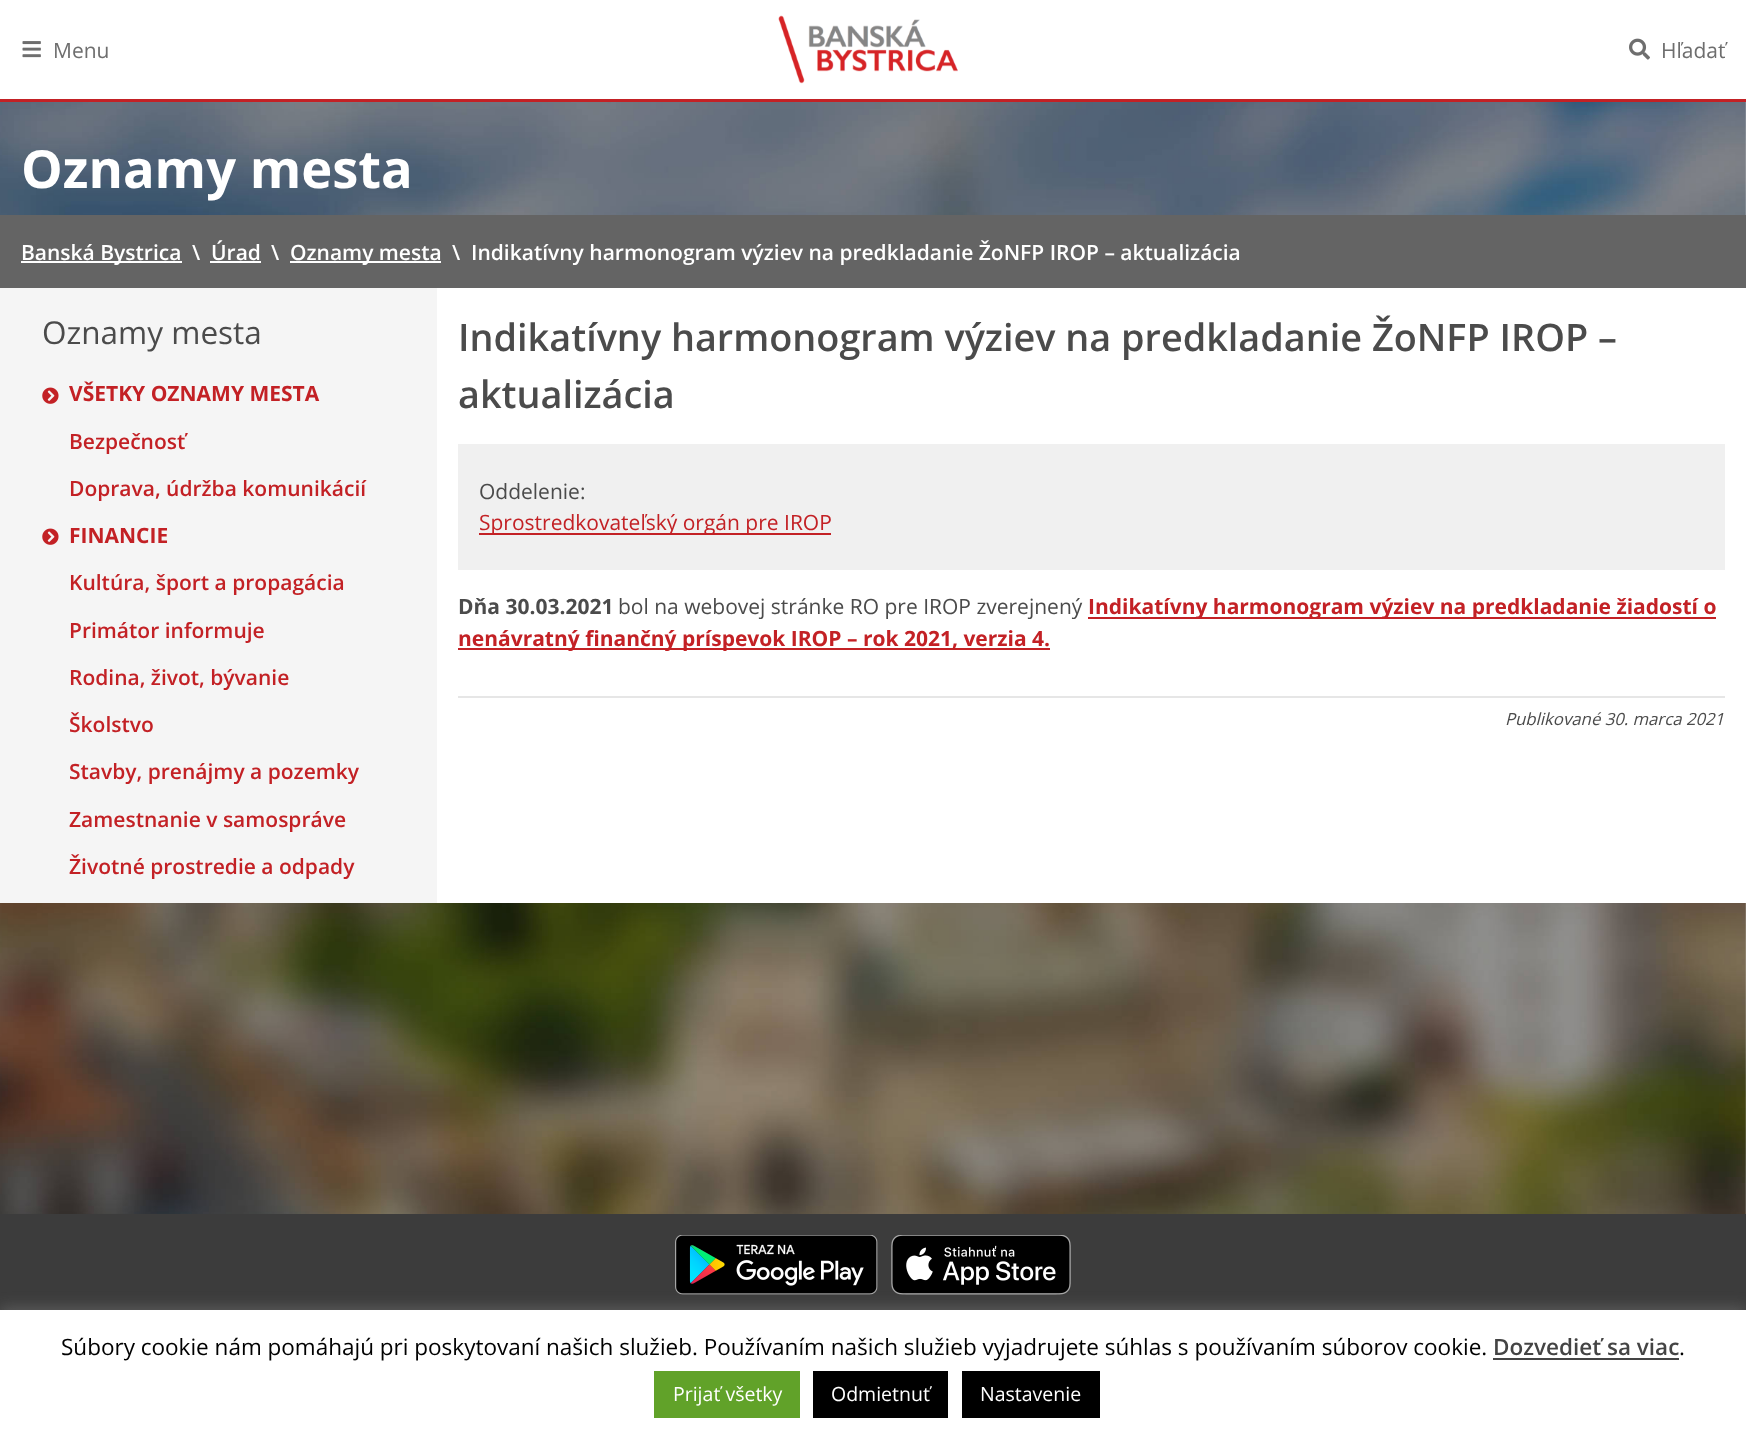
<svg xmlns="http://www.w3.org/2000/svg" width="1746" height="1435">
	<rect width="100%" height="100%" fill="#FFFFFF" />
	<image x="0" y="102" width="1746" height="1112" href="assets/img1.png" />
	<rect x="0" y="99" width="1746" height="3" fill="#C32125" />
	<image x="22" y="41" width="19" height="17" href="assets/img2.png" />
	<text x="53" y="58" font-family="Open Sans" font-size="21" fill="#6E6E6E">Menu</text>
	<image x="778" y="15" width="180" height="69" href="assets/img3.png" />
	<image x="1629" y="38" width="21" height="22" href="assets/img4.png" />
	<text x="1661" y="58" font-family="Open Sans" font-size="21" fill="#6E6E6E">Hľadať</text>
	<text x="21" y="188" font-family="Open Sans" font-size="52.5" font-weight="700" fill="#FFFFFF">Oznamy mesta</text>
	<rect x="0" y="215" width="1746" height="73" fill="#646464" />
	<rect x="21" y="261" width="161" height="2" fill="#FFFFFF" />
	<g font-family="Open Sans" font-size="21" font-weight="600" fill="#FFFFFF">
		<text x="21" y="260">Banská Bystrica</text>
		<text x="192" y="260">\</text>
		<text x="211" y="260">Úrad</text>
	</g>
	<rect x="210" y="261" width="51" height="2" fill="#FFFFFF" />
	<text x="271" y="260" font-family="Open Sans" font-size="21" font-weight="600" fill="#FFFFFF">\</text>
	<rect x="290" y="261" width="151" height="2" fill="#FFFFFF" />
	<g font-family="Open Sans" font-size="21" font-weight="600" fill="#FFFFFF">
		<text x="290" y="260">Oznamy mesta</text>
		<text x="452" y="260">\</text>
		<text x="471" y="260">Indikatívny harmonogram výziev na predkladanie ŽoNFP IROP – aktualizácia</text>
	</g>
	<rect x="0" y="288" width="437" height="615" fill="#F5F5F5" />
	<text x="42" y="344" font-family="Open Sans" font-size="31.5" fill="#4B4B4B">Oznamy mesta</text>
	<image x="42" y="387" width="17" height="17" href="assets/img5.png" />
	<text x="69" y="401" font-family="Open Sans" font-size="21" font-weight="700" fill="#C32125">VŠETKY OZNAMY MESTA</text>
	<g font-family="Open Sans" font-size="21" font-weight="600" fill="#C32125">
		<text x="69" y="449">Bezpečnosť</text>
		<text x="69" y="496">Doprava, údržba komunikácií</text>
	</g>
	<image x="42" y="528" width="17" height="17" href="assets/img5.png" />
	<text x="69" y="543" font-family="Open Sans" font-size="21" font-weight="700" fill="#C32125">FINANCIE</text>
	<g font-family="Open Sans" font-size="21" font-weight="600" fill="#C32125">
		<text x="69" y="590">Kultúra, šport a propagácia</text>
		<text x="69" y="638">Primátor informuje</text>
		<text x="69" y="685">Rodina, život, bývanie</text>
		<text x="69" y="732">Školstvo</text>
		<text x="69" y="779">Stavby, prenájmy a pozemky</text>
		<text x="69" y="827">Zamestnanie v samospráve</text>
		<text x="69" y="874">Životné prostredie a odpady</text>
	</g>
	<rect x="437" y="288" width="1309" height="615" fill="#FFFFFF" />
	<g font-family="Open Sans" font-size="37.8" font-weight="600" fill="#4B4B4B">
		<text x="458" y="351">Indikatívny harmonogram výziev na predkladanie ŽoNFP IROP –</text>
		<text x="458" y="408">aktualizácia</text>
	</g>
	<rect x="458" y="444" width="1267" height="126" fill="#F0F0F0" />
	<text x="479" y="499" font-family="Open Sans" font-size="21" fill="#4B4B4B">Oddelenie:</text>
	<rect x="479" y="533" width="352" height="2" fill="#C32125" />
	<text x="479" y="530" font-family="Open Sans" font-size="21" fill="#C32125">Sprostredkovateľský orgán pre IROP</text>
	<text x="458" y="614" font-family="Open Sans" font-size="21" font-weight="700" fill="#4B4B4B">Dňa 30.03.2021</text>
	<text x="618" y="614" font-family="Open Sans" font-size="21" fill="#4B4B4B">bol na webovej stránke RO pre IROP zverejnený</text>
	<rect x="1088" y="617" width="628" height="2" fill="#C32125" />
	<text x="1088" y="614" font-family="Open Sans" font-size="21" font-weight="700" fill="#C32125">Indikatívny harmonogram výziev na predkladanie žiadostí o</text>
	<rect x="458" y="648" width="592" height="2" fill="#C32125" />
	<text x="458" y="646" font-family="Open Sans" font-size="21" font-weight="700" fill="#C32125">nenávratný finančný príspevok IROP – rok 2021, verzia 4.</text>
	<rect x="458" y="696" width="1267" height="2" fill="#E6E6E6" />
	<text x="1505" y="725" font-family="Open Sans" font-size="16.75" font-style="italic" fill="#4B4B4B">Publikované 30. marca 2021</text>
	<rect x="0" y="1214" width="1746" height="96" fill="#3C3C3C" />
	<image x="675" y="1235" width="203" height="60" href="assets/img6.png" />
	<image x="891" y="1235" width="180" height="60" href="assets/img7.png" />
	<rect x="0" y="1308" width="1746" height="126" fill="#ACABAB" fill-opacity="0.3" filter="blur(7.5px)" />
	<rect x="0" y="1310" width="1746" height="125" fill="#FFFFFF" />
	<text x="61" y="1355" font-family="Open Sans" font-size="22.5" fill="#000000">Súbory cookie nám pomáhajú pri poskytovaní našich služieb. Používaním našich služieb vyjadrujete súhlas s používaním súborov cookie.</text>
	<text x="1493" y="1355" font-family="Open Sans" font-size="22.5" font-weight="600" fill="#444444">Dozvedieť sa viac</text>
	<rect x="1493" y="1358" width="186" height="2" fill="#444444" />
	<text x="1679" y="1355" font-family="Open Sans" font-size="22.5" fill="#000000">.</text>
	<rect x="654" y="1371" width="146" height="47" fill="#61A229" />
	<text x="673" y="1401" font-family="Open Sans" font-size="19.5" fill="#FFFFFF">Prijať všetky</text>
	<rect x="813" y="1371" width="135" height="47" fill="#000000" />
	<text x="831" y="1401" font-family="Open Sans" font-size="19.5" fill="#FFFFFF">Odmietnuť</text>
	<rect x="962" y="1371" width="138" height="47" fill="#000000" />
	<text x="980" y="1401" font-family="Open Sans" font-size="19.5" fill="#FFFFFF">Nastavenie</text>
</svg>
